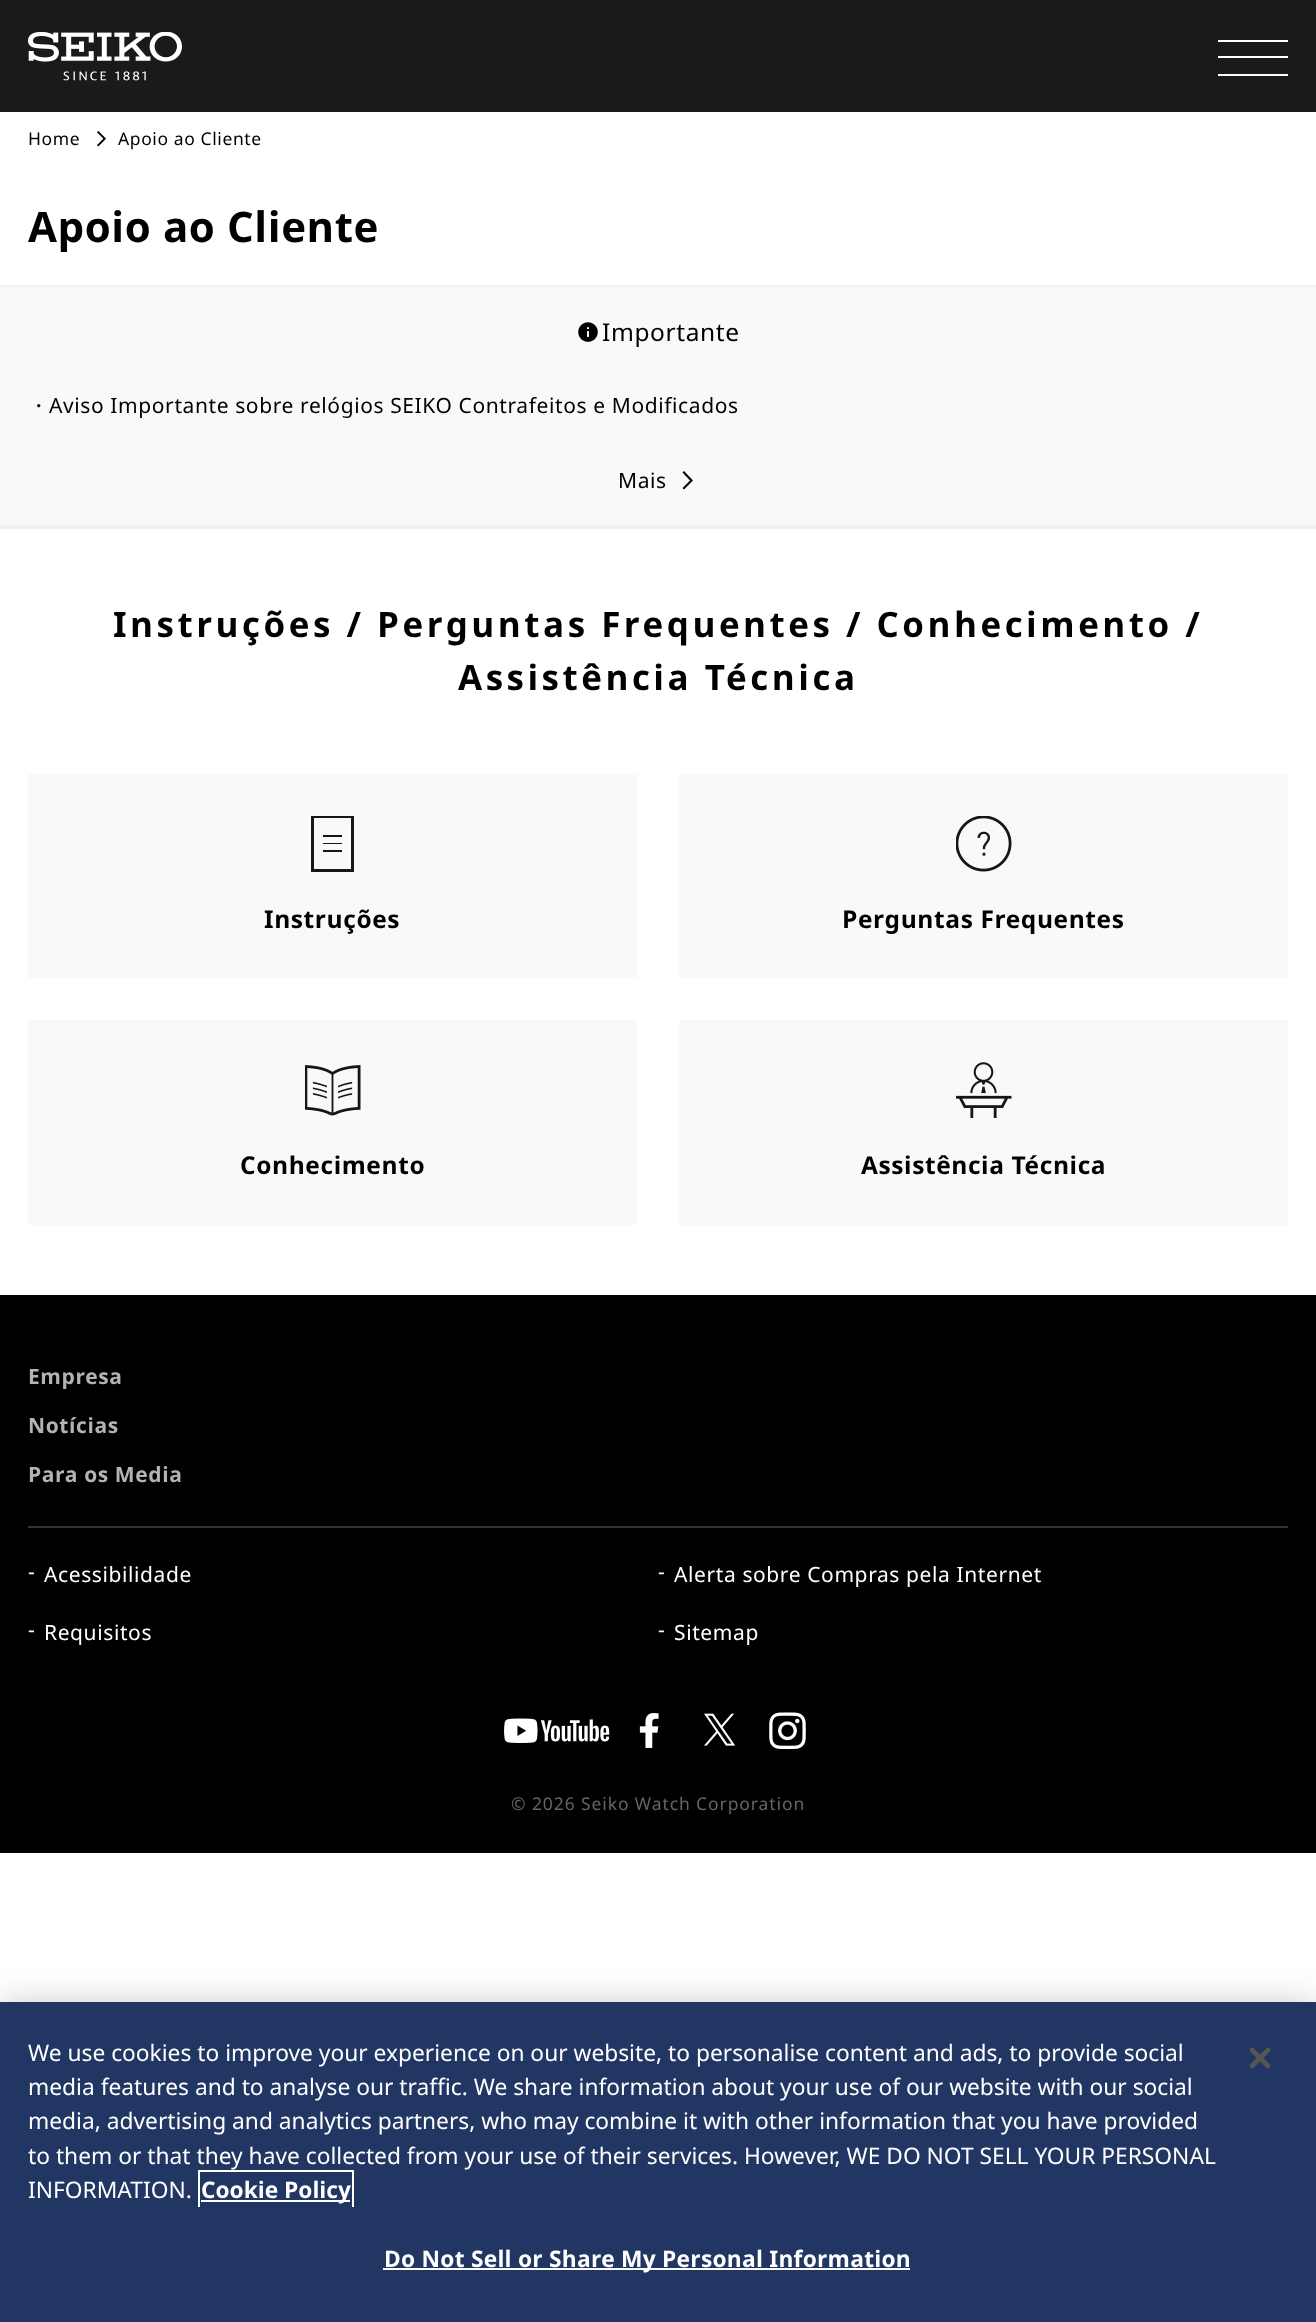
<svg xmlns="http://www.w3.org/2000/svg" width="1316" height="2322">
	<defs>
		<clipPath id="clip1"><rect x="28" y="2037" width="1194" height="170" /></clipPath>
	</defs>
	<rect width="100%" height="100%" fill="#FFFFFF" />
	<rect x="0" y="0" width="1316" height="112" fill="#1A1A1A" />
	<image x="28" y="32" width="154" height="49" href="assets/img1.png" />
	<rect x="1218" y="40" width="70" height="2" fill="#FFFFFF" />
	<rect x="1218" y="56" width="70" height="2" fill="#FFFFFF" />
	<rect x="1218" y="74" width="70" height="2" fill="#FFFFFF" />
	<text x="28" y="145" font-family="Noto Sans" font-size="17.5" letter-spacing="0.6" fill="#000000">Home</text>
	<image x="97" y="131" width="9" height="16" href="assets/img2.png" />
	<text x="118" y="145" font-family="Noto Sans" font-size="17.5" letter-spacing="0.6" fill="#000000">Apoio ao Cliente</text>
	<rect x="0" y="285" width="1316" height="2" fill="#F0F0F0" />
	<text x="28" y="242" font-family="Noto Sans" font-size="42" font-weight="700" letter-spacing="0.6" fill="#000000">Apoio ao Cliente</text>
	<rect x="0" y="287" width="1316" height="238" fill="#F9F9F9" />
	<rect x="0" y="525" width="1316" height="4" fill="#F0F0F0" />
	<image x="578" y="322" width="20" height="20" href="assets/img3.png" />
	<text x="602" y="341" font-family="Noto Sans" font-size="24.5" letter-spacing="0.6" fill="#000000">Importante</text>
	<text x="28" y="413" font-family="WenQuanYi Zen Hei" font-size="21" font-weight="500" letter-spacing="0.6" fill="#000000">・</text>
	<g font-family="Noto Sans" font-size="21" letter-spacing="0.6" fill="#000000">
		<text x="49" y="413">Aviso Importante sobre relógios SEIKO Contrafeitos e Modificados</text>
		<text x="618" y="488">Mais</text>
	</g>
	<path d="M684 489.5L682.5 488L690 480.5L682.5 472.5L684 471L693 480.5Z" fill="#000000" />
	<g font-family="Noto Sans" font-size="35" font-weight="700" letter-spacing="3.5" fill="#000000">
		<text x="113" y="637">Instruções / Perguntas Frequentes / Conhecimento /</text>
		<text x="458" y="690">Assistência Técnica</text>
	</g>
	<rect x="28" y="774" width="609" height="204" fill="#F9F9F9" />
	<path d="M314 818V869H351V818ZM311 816H354V872H311ZM323 844H342V843H323ZM323 837H342V835H323ZM323 852H342V850H323Z" fill="#161616" />
	<text x="264" y="928" font-family="Noto Sans" font-size="24.5" font-weight="700" letter-spacing="0.6" fill="#000000">Instruções</text>
	<rect x="679" y="774" width="609" height="204" fill="#F9F9F9" />
	<image x="956" y="816" width="56" height="56" href="assets/img4.png" />
	<text x="842" y="928" font-family="Noto Sans" font-size="24.5" font-weight="700" letter-spacing="0.6" fill="#000000">Perguntas Frequentes</text>
	<rect x="28" y="1020" width="609" height="205" fill="#F9F9F9" />
	<image x="305" y="1065" width="56" height="51" href="assets/img5.png" />
	<text x="240" y="1174" font-family="Noto Sans" font-size="24.5" font-weight="700" letter-spacing="0.6" fill="#000000">Conhecimento</text>
	<rect x="679" y="1020" width="609" height="205" fill="#F9F9F9" />
	<image x="956" y="1062" width="56" height="56" href="assets/img6.png" />
	<text x="861" y="1174" font-family="Noto Sans" font-size="24.5" font-weight="700" letter-spacing="0.6" fill="#000000">Assistência Técnica</text>
	<rect x="0" y="1295" width="1316" height="558" fill="#000000" />
	<rect x="28" y="1526" width="1260" height="2" fill="#333333" />
	<g font-family="Noto Sans" font-size="21" font-weight="700" letter-spacing="0.6" fill="#B3B3B3">
		<text x="28" y="1384">Empresa</text>
		<text x="28" y="1433">Notícias</text>
		<text x="28" y="1482">Para os Media</text>
	</g>
	<g font-family="Noto Sans" font-size="21" letter-spacing="0.6" fill="#FFFFFF">
		<text x="28" y="1579">-</text>
		<text x="44" y="1582">Acessibilidade</text>
		<text x="28" y="1637">-</text>
		<text x="44" y="1640">Requisitos</text>
		<text x="658" y="1579">-</text>
		<text x="674" y="1582">Alerta sobre Compras pela Internet</text>
		<text x="658" y="1637">-</text>
		<text x="674" y="1640">Sitemap</text>
	</g>
	<image x="504" y="1718" width="106" height="25" href="assets/img7.png" />
	<image x="639" y="1713" width="20" height="35" href="assets/img8.png" />
	<image x="704" y="1713" width="32" height="33" href="assets/img9.png" />
	<image x="769" y="1712" width="37" height="38" href="assets/img10.png" />
	<text x="511" y="1810" font-family="Noto Sans" font-size="17.5" letter-spacing="0.9" fill="#666666">© 2026 Seiko Watch Corporation</text>
	<rect x="0" y="2002" width="1316" height="320" fill="#000000" fill-opacity="0.2" filter="blur(16px)" />
	<rect x="0" y="2002" width="1316" height="320" fill="#213662" />
	<g font-family="Noto Sans" font-size="22.75" fill="#FFFFFF">
		<text x="28" y="2061">We use cookies to improve your experience on our website, to personalise content and ads, to provide social</text>
		<text x="28" y="2095">media features and to analyse our traffic. We share information about your use of our website with our social</text>
		<text x="28" y="2129">media, advertising and analytics partners, who may combine it with other information that you have provided</text>
		<text x="28" y="2164">to them or that they have collected from your use of their services. However, WE DO NOT SELL YOUR PERSONAL</text>
		<text x="28" y="2198">INFORMATION.</text>
	</g>
	<rect x="201" y="2200" width="149" height="2" fill="#FFFFFF" />
	<text x="201" y="2198" font-family="Noto Sans" font-size="22.75" font-weight="700" fill="#FFFFFF">Cookie Policy</text>
	<g clip-path="url(#clip1)">
		<rect x="199" y="2171" width="154" height="37" fill="none" stroke="#FFFFFF" stroke-width="2" />
	</g>
	<rect x="383" y="2268" width="527" height="2" fill="#FFFFFF" />
	<text x="384" y="2267" font-family="Noto Sans" font-size="22.75" font-weight="700" letter-spacing="0.25" fill="#FFFFFF">Do Not Sell or Share My Personal Information</text>
	<image x="1250" y="2048" width="21" height="21" href="assets/img11.png" />
</svg>
